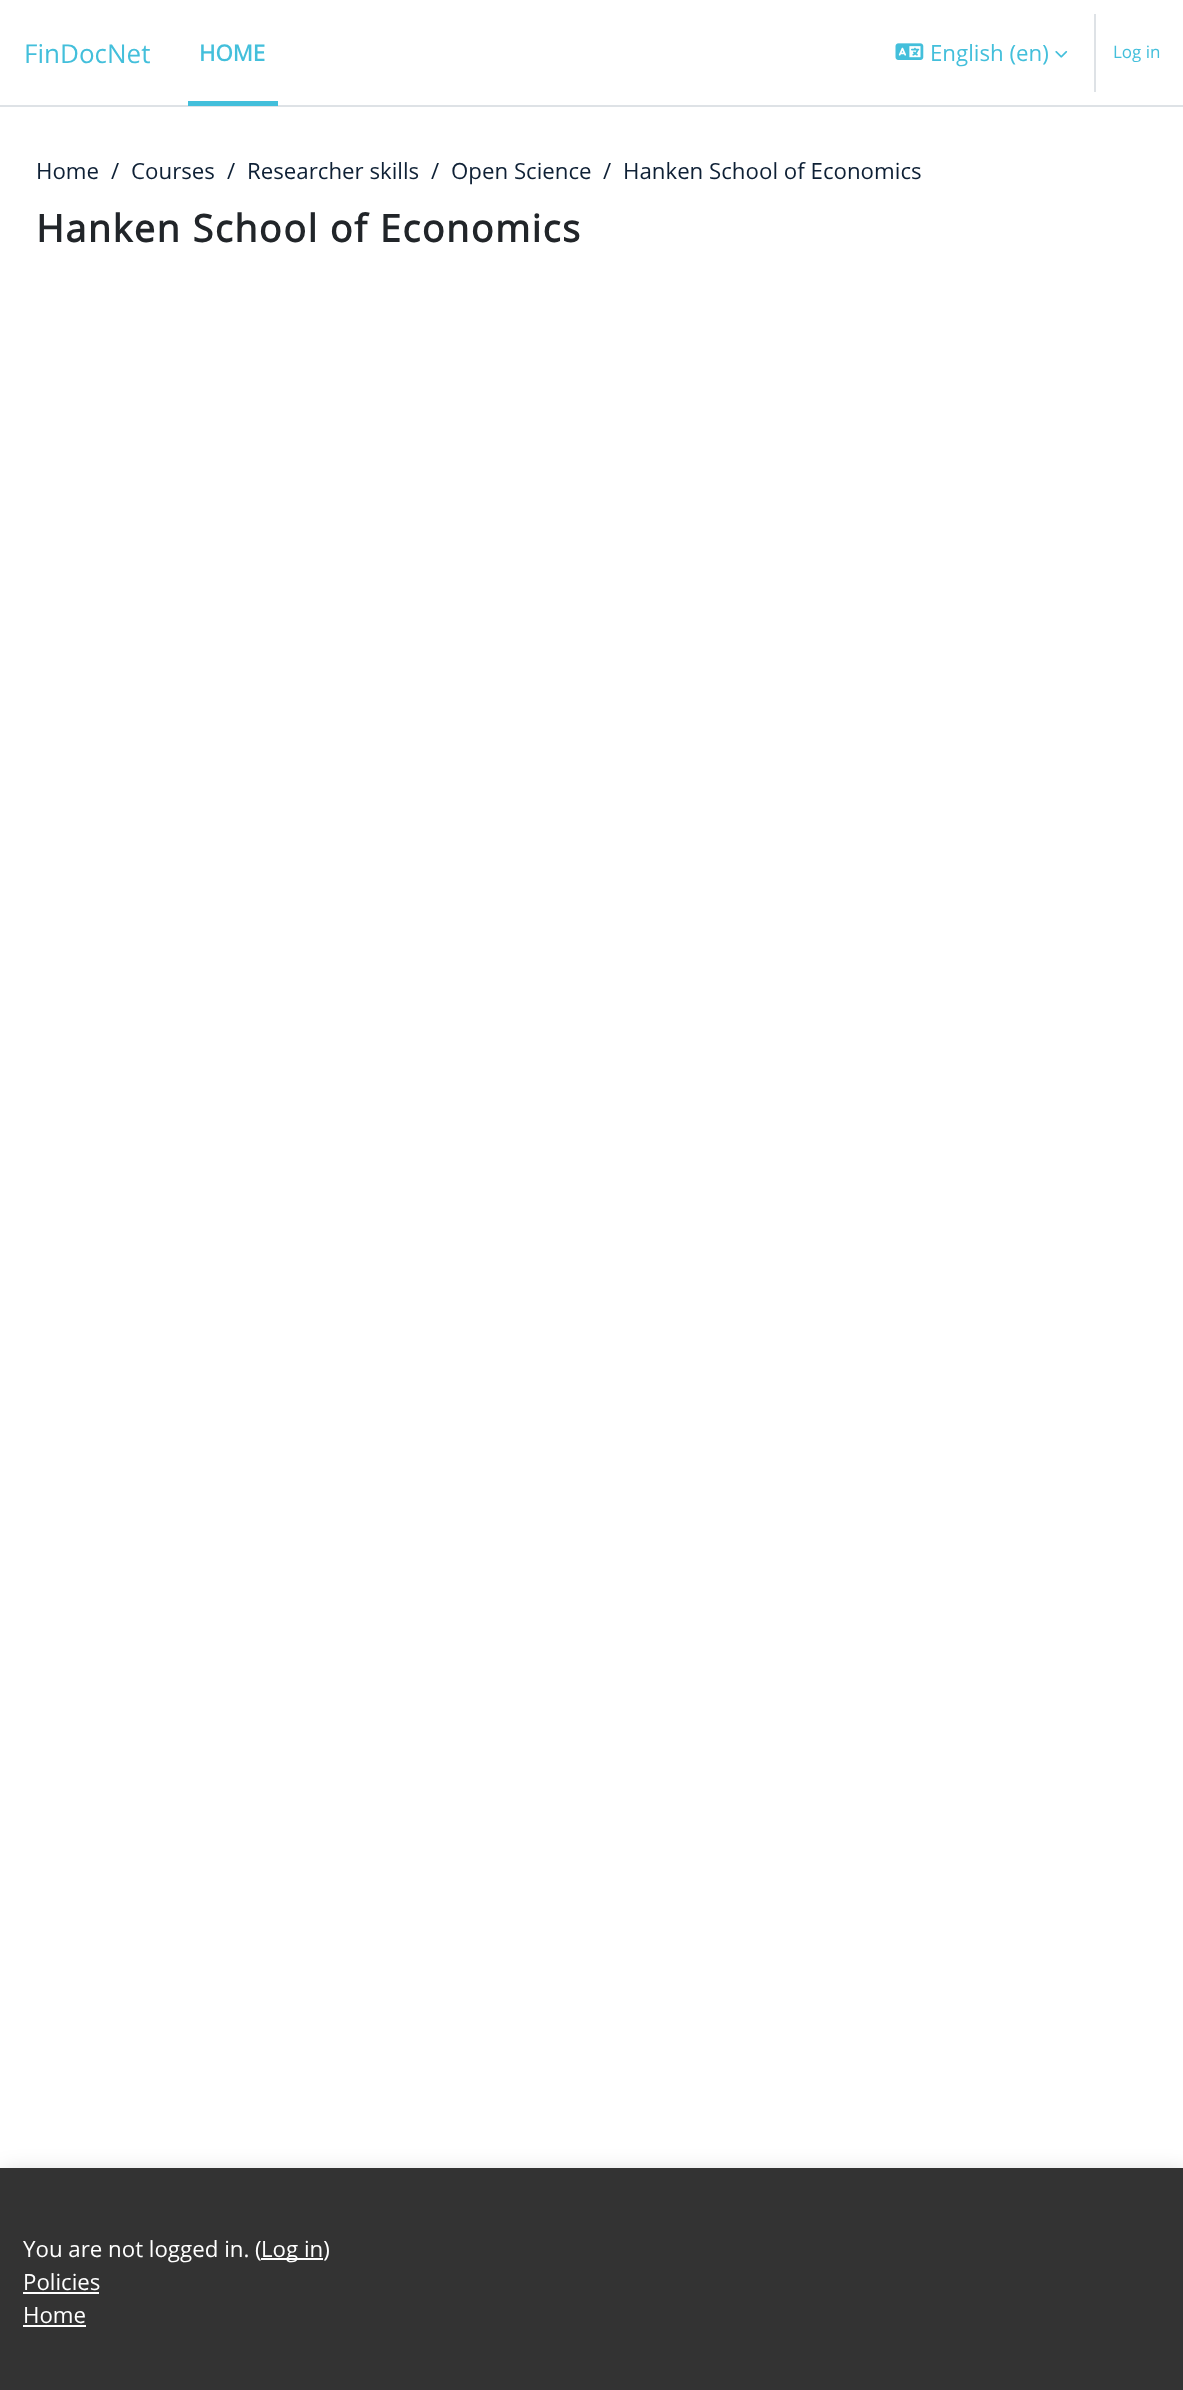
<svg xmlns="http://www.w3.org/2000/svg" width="1183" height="2390">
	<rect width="100%" height="100%" fill="#FFFFFF" />
	<rect x="0" y="105" width="1183" height="2" fill="#DEE2E6" />
	<text x="24" y="63" font-family="Open Sans" font-size="26" fill="#43BFDB">FinDocNet</text>
	<rect x="188" y="101" width="90" height="5" fill="#43BFDB" />
	<text x="199" y="61" font-family="Open Sans" font-size="22.25" font-weight="700" fill="#43BFDB">HOME</text>
	<image x="895" y="43" width="29" height="17" href="assets/img1.png" />
	<text x="930" y="61" font-family="Open Sans" font-size="22.25" fill="#43BFDB">English (en)</text>
	<image x="1055" y="51" width="13" height="7" href="assets/img2.png" />
	<rect x="1094" y="14" width="2" height="78" fill="#DEE2E6" />
	<text x="1113" y="58" font-family="Open Sans" font-size="17" fill="#43BFDB">Log in</text>
	<g font-family="Open Sans" font-size="22.25" fill="#0E2035">
		<text x="36" y="179">Home</text>
		<text x="111" y="179">/</text>
		<text x="131" y="179">Courses</text>
		<text x="227" y="179">/</text>
		<text x="247" y="179">Researcher skills</text>
		<text x="431" y="179">/</text>
		<text x="451" y="179">Open Science</text>
		<text x="603" y="179">/</text>
		<text x="623" y="179">Hanken School of Economics</text>
	</g>
	<text x="36" y="242" font-family="Open Sans" font-size="37.75" font-weight="700" letter-spacing="1.5" fill="#212529">Hanken School of Economics</text>
	<rect x="3" y="2171" width="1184" height="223" fill="#000000" fill-opacity="0.15" filter="blur(10.5px)" />
	<rect x="0" y="2168" width="1183" height="222" fill="#333333" />
	<text x="23" y="2257" font-family="Open Sans" font-size="22.25" fill="#FFFFFF">You are not logged in. (</text>
	<rect x="261" y="2258" width="62" height="2" fill="#FFFFFF" />
	<g font-family="Open Sans" font-size="22.25" fill="#FFFFFF">
		<text x="261" y="2257">Log in)</text>
		<text x="23" y="2290">Policies</text>
	</g>
	<rect x="23" y="2292" width="76" height="2" fill="#FFFFFF" />
	<text x="23" y="2323" font-family="Open Sans" font-size="22.25" fill="#FFFFFF">Home</text>
	<rect x="23" y="2325" width="63" height="2" fill="#FFFFFF" />
</svg>
